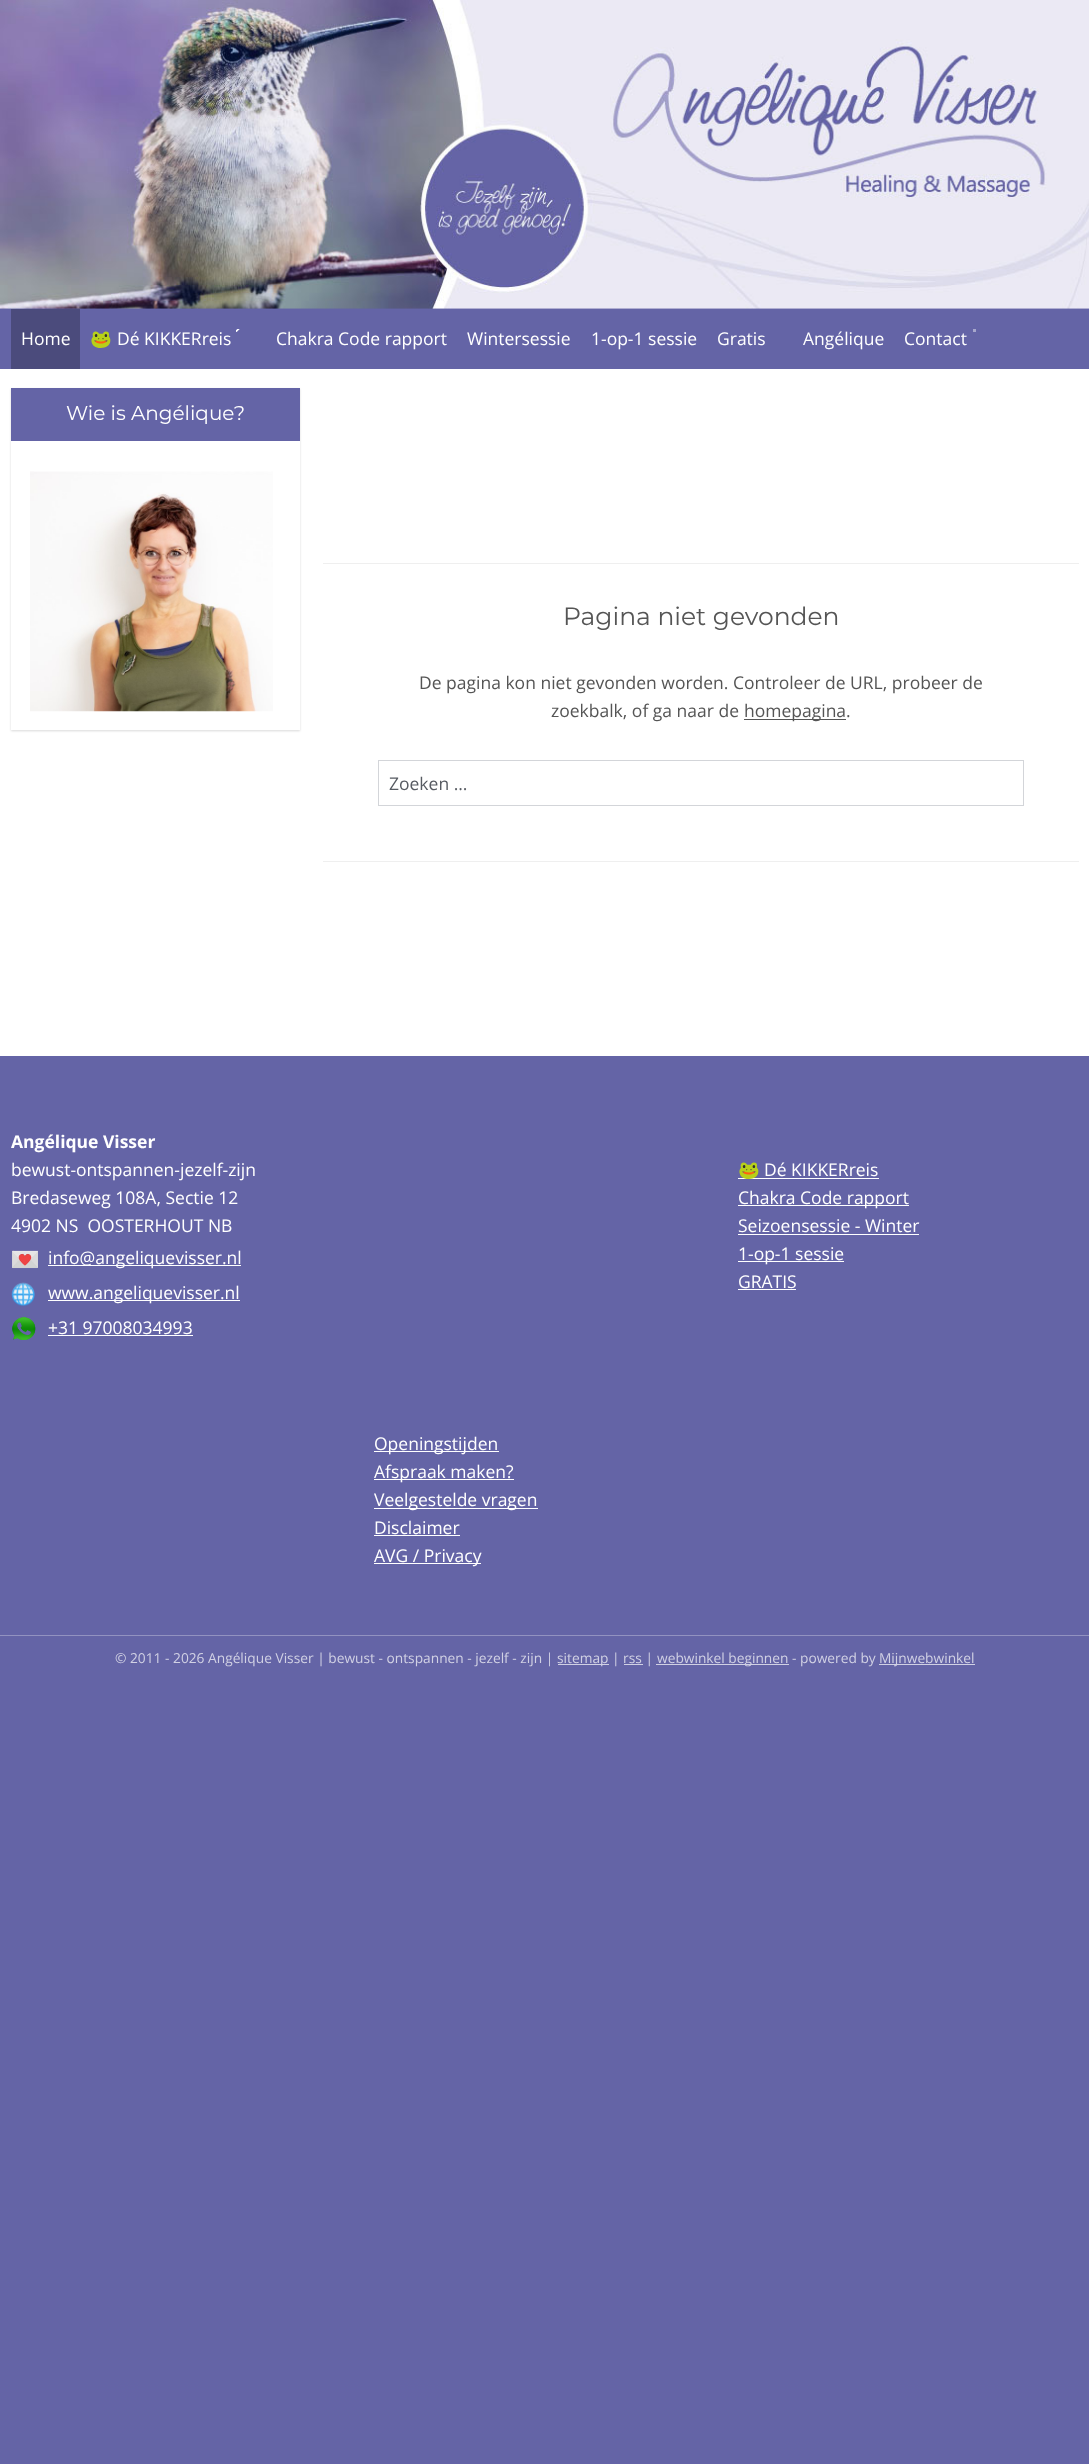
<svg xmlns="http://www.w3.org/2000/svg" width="1089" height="2464">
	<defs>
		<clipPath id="clip1"><path d="M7 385H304V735H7ZM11 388H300V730H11Z" clip-rule="evenodd" /></clipPath>
	</defs>
	<rect width="100%" height="100%" fill="#6464A6" />
	<image x="0" y="0" width="1089" height="309" href="assets/img1.png" />
	<rect x="11" y="309" width="69" height="60" fill="#4B4B7C" />
	<text x="21" y="345" font-family="Open Sans" font-size="17.5" fill="#FFFFFF">Home</text>
	<text x="90" y="345" font-family="Noto Color Emoji" font-size="17.5" fill="#FFFFFF">🐸</text>
	<image x="236" y="329" width="4" height="3" href="assets/img2.png" />
	<g font-family="Open Sans" font-size="17.5" fill="#FFFFFF">
		<text x="117" y="345">Dé KIKKERreis</text>
		<text x="276" y="345">Chakra Code rapport</text>
		<text x="467" y="345">Wintersessie</text>
		<text x="591" y="345">1-op-1 sessie</text>
		<text x="717" y="345">Gratis</text>
		<text x="803" y="345">Angélique</text>
	</g>
	<rect x="973" y="329" width="3" height="3" fill="#A7A7CC" />
	<text x="904" y="345" font-family="Open Sans" font-size="17.5" fill="#FFFFFF">Contact</text>
	<rect x="0" y="369" width="1089" height="687" fill="#FFFFFF" />
	<g clip-path="url(#clip1)">
		<rect x="11" y="389" width="289" height="342" fill="#000000" fill-opacity="0.15" filter="blur(1px)" />
	</g>
	<rect x="11" y="388" width="289" height="53" fill="#6464A6" />
	<text x="66" y="420" font-family="Montserrat" font-size="20" fill="#FFFFFF">Wie is Angélique?</text>
	<image x="30" y="471" width="243" height="241" href="assets/img3.png" />
	<rect x="323" y="563" width="756" height="1" fill="#EFEFEF" />
	<rect x="323" y="861" width="756" height="1" fill="#EFEFEF" />
	<text x="563" y="625" font-family="Montserrat" font-size="25" fill="#555555">Pagina niet gevonden</text>
	<g font-family="Open Sans" font-size="17.5" fill="#555555">
		<text x="419" y="689">De pagina kon niet gevonden worden. Controleer de URL, probeer de</text>
		<text x="551" y="717">zoekbalk, of ga naar de</text>
	</g>
	<rect x="744" y="719" width="102" height="1" fill="#555555" />
	<text x="744" y="717" font-family="Open Sans" font-size="17.5" fill="#555555">homepagina.</text>
	<rect x="378.5" y="760.5" width="645" height="45" fill="none" stroke="#D3D5D9" />
	<text x="389" y="790" font-family="Open Sans" font-size="17.5" fill="#575B62">Zoeken ...</text>
	<text x="11" y="1148" font-family="Open Sans" font-size="17.5" font-weight="700" fill="#FFFFFF">Angélique Visser</text>
	<g font-family="Open Sans" font-size="17.5" fill="#FFFFFF">
		<text x="11" y="1176">bewust-ontspannen-jezelf-zijn</text>
		<text x="11" y="1204">Bredaseweg 108A, Sectie 12</text>
		<text x="11" y="1232" xml:space="preserve">4902 NS  OOSTERHOUT NB</text>
	</g>
	<image x="12" y="1250" width="26" height="19" href="assets/img4.png" />
	<rect x="48" y="1265" width="193" height="1" fill="#FFFFFF" />
	<text x="48" y="1264" font-family="Open Sans" font-size="17.5" fill="#FFFFFF">info@angeliquevisser.nl</text>
	<image x="11" y="1282" width="24" height="25" href="assets/img5.png" />
	<rect x="48" y="1300" width="192" height="1" fill="#FFFFFF" />
	<text x="48" y="1299" font-family="Open Sans" font-size="17.5" fill="#FFFFFF">www.angeliquevisser.nl</text>
	<image x="12" y="1317" width="24" height="23" href="assets/img6.png" />
	<text x="48" y="1334" font-family="Open Sans" font-size="17.5" fill="#FFFFFF">+31 97008034993</text>
	<rect x="48" y="1335" width="145" height="1" fill="#FFFFFF" />
	<rect x="738" y="1178" width="141" height="1" fill="#FFFFFF" />
	<text x="738" y="1176" font-family="Noto Color Emoji" font-size="17.5" fill="#FFFFFF">🐸</text>
	<text x="764" y="1176" font-family="Open Sans" font-size="17.5" fill="#FFFFFF">Dé KIKKERreis</text>
	<rect x="738" y="1205" width="171" height="1" fill="#FFFFFF" />
	<g font-family="Open Sans" font-size="17.5" fill="#FFFFFF">
		<text x="738" y="1204">Chakra Code rapport</text>
		<text x="738" y="1232">Seizoensessie - Winter</text>
	</g>
	<rect x="738" y="1234" width="181" height="1" fill="#FFFFFF" />
	<rect x="738" y="1261" width="106" height="1" fill="#FFFFFF" />
	<g font-family="Open Sans" font-size="17.5" fill="#FFFFFF">
		<text x="738" y="1260">1-op-1 sessie</text>
		<text x="738" y="1288">GRATIS</text>
	</g>
	<rect x="738" y="1289" width="58" height="1" fill="#FFFFFF" />
	<rect x="374" y="1451" width="125" height="1" fill="#FFFFFF" />
	<text x="374" y="1450" font-family="Open Sans" font-size="17.5" fill="#FFFFFF">Openingstijden</text>
	<rect x="374" y="1479" width="140" height="1" fill="#FFFFFF" />
	<text x="374" y="1478" font-family="Open Sans" font-size="17.5" fill="#FFFFFF">Afspraak maken?</text>
	<rect x="374" y="1508" width="164" height="1" fill="#FFFFFF" />
	<g font-family="Open Sans" font-size="17.5" fill="#FFFFFF">
		<text x="374" y="1506">Veelgestelde vragen</text>
		<text x="374" y="1534">Disclaimer</text>
	</g>
	<rect x="374" y="1535" width="86" height="1" fill="#FFFFFF" />
	<rect x="374" y="1563" width="107" height="1" fill="#FFFFFF" />
	<text x="374" y="1562" font-family="Open Sans" font-size="17.5" fill="#FFFFFF">AVG / Privacy</text>
	<rect x="0" y="1635" width="1089" height="1" fill="#9292C0" />
	<text x="115" y="1663" font-family="Open Sans" font-size="13.75" fill="#D1D1E4">© 2011 - 2026 Angélique Visser | bewust - ontspannen - jezelf - zijn |</text>
	<rect x="558" y="1664" width="51" height="1" fill="#D1D1E4" />
	<text x="557" y="1663" font-family="Open Sans" font-size="13.75" fill="#D1D1E4">sitemap | rss |</text>
	<rect x="656" y="1664" width="133" height="1" fill="#D1D1E4" />
	<text x="657" y="1663" font-family="Open Sans" font-size="13.75" fill="#D1D1E4">webwinkel beginnen - powered by</text>
	<rect x="879" y="1664" width="96" height="1" fill="#D1D1E4" />
	<text x="879" y="1663" font-family="Open Sans" font-size="13.75" fill="#D1D1E4">Mijnwebwinkel</text>
	<rect x="624" y="1664" width="19" height="1" fill="#D1D1E4" />
</svg>
